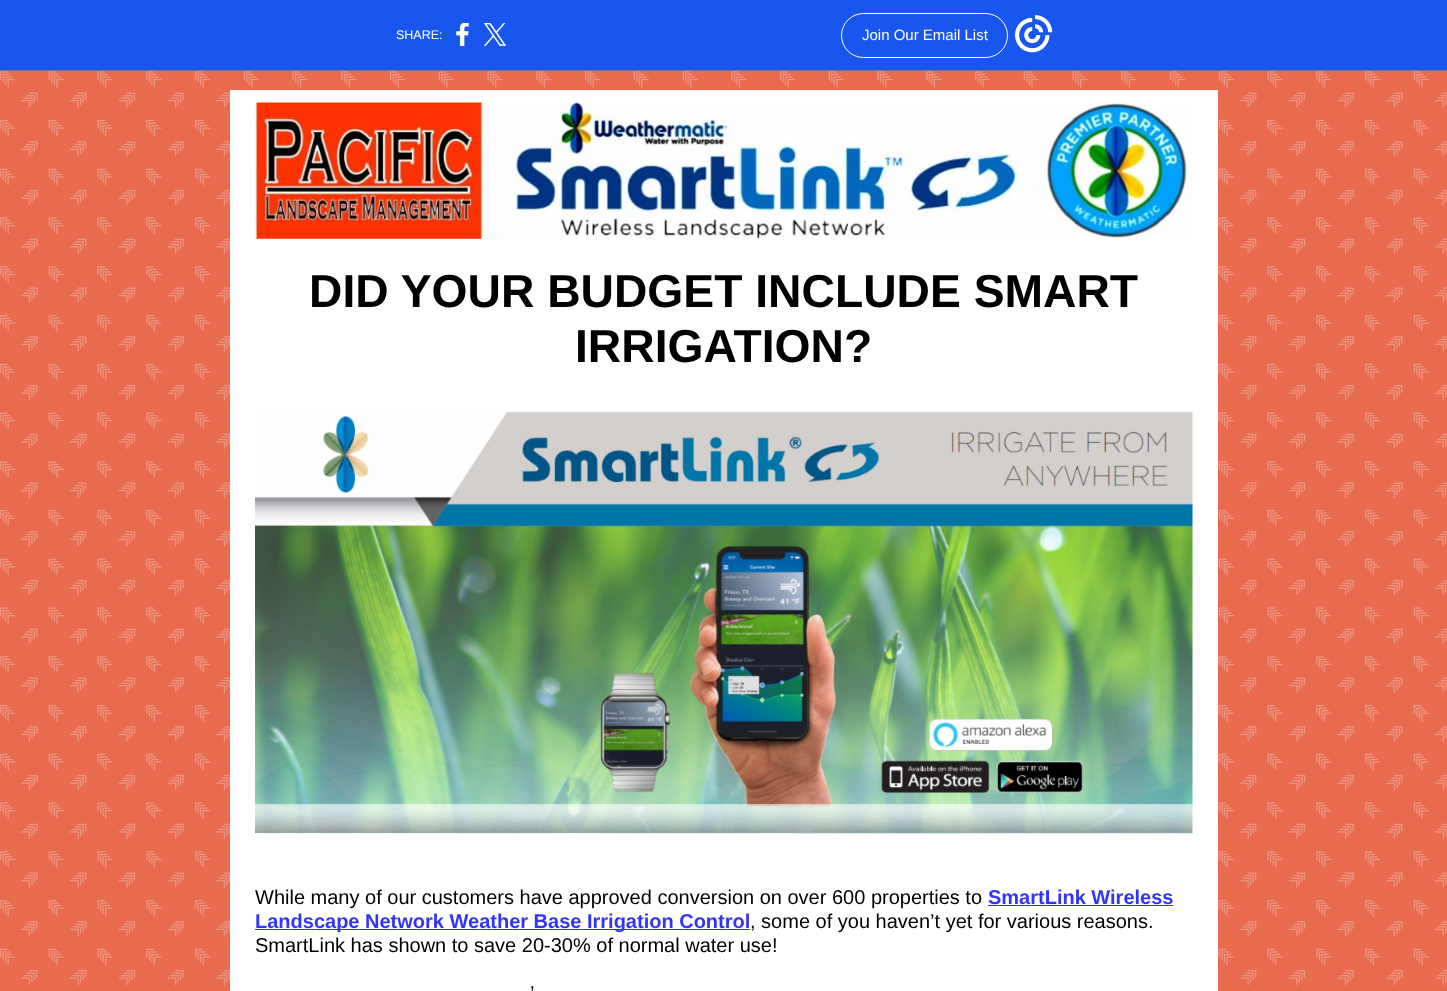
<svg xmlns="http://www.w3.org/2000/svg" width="1447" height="991">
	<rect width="100%" height="100%" fill="#1856ED" />
	<rect x="0" y="70" width="1447" height="1" fill="#7A7A7A" />
	<text x="396" y="39" font-family="Liberation Sans" font-size="12.5" fill="#FFFFFF">SHARE:</text>
	<image x="456" y="23" width="13" height="23" href="assets/img1.png" />
	<image x="484" y="23" width="22" height="23" href="assets/img2.png" />
	<rect x="841.5" y="13.5" width="166" height="44" rx="22" fill="none" stroke="#FFFFFF" />
	<text x="862" y="40" font-family="Liberation Sans" font-size="15" fill="#FFFFFF">Join Our Email List</text>
	<image x="1015" y="15" width="38" height="38" href="assets/img3.png" />
	<rect x="0" y="71" width="1447" height="920" fill="#E86B4F" />
	<image x="0" y="71" width="1447" height="915" href="assets/img4.png" />
	<rect x="230" y="90" width="988" height="901" fill="#FFFFFF" />
	<image x="255" y="102" width="938" height="137" href="assets/img5.png" />
	<g font-family="Liberation Sans" font-size="46.25" font-weight="700" fill="#000000">
		<text x="309" y="307">DID YOUR BUDGET INCLUDE SMART</text>
		<text x="575" y="362">IRRIGATION?</text>
	</g>
	<image x="255" y="411" width="938" height="423" href="assets/img6.png" />
	<text x="255" y="904" font-family="Liberation Sans" font-size="20" fill="#000000">While many of our customers have approved conversion on over 600 properties to</text>
	<text x="988" y="904" font-family="Liberation Sans" font-size="20" font-weight="700" fill="#3333FF">SmartLink Wireless</text>
	<rect x="988" y="905" width="185" height="1" fill="#3333FF" />
	<rect x="255" y="929" width="495" height="1" fill="#3333FF" />
	<text x="255" y="928" font-family="Liberation Sans" font-size="20" font-weight="700" fill="#3333FF">Landscape Network Weather Base Irrigation Control</text>
	<g font-family="Liberation Sans" font-size="20" fill="#000000">
		<text x="750" y="928">, some of you haven’t yet for various reasons.</text>
		<text x="255" y="952">SmartLink has shown to save 20-30% of normal water use!</text>
		<text x="530" y="1000">’</text>
	</g>
</svg>
